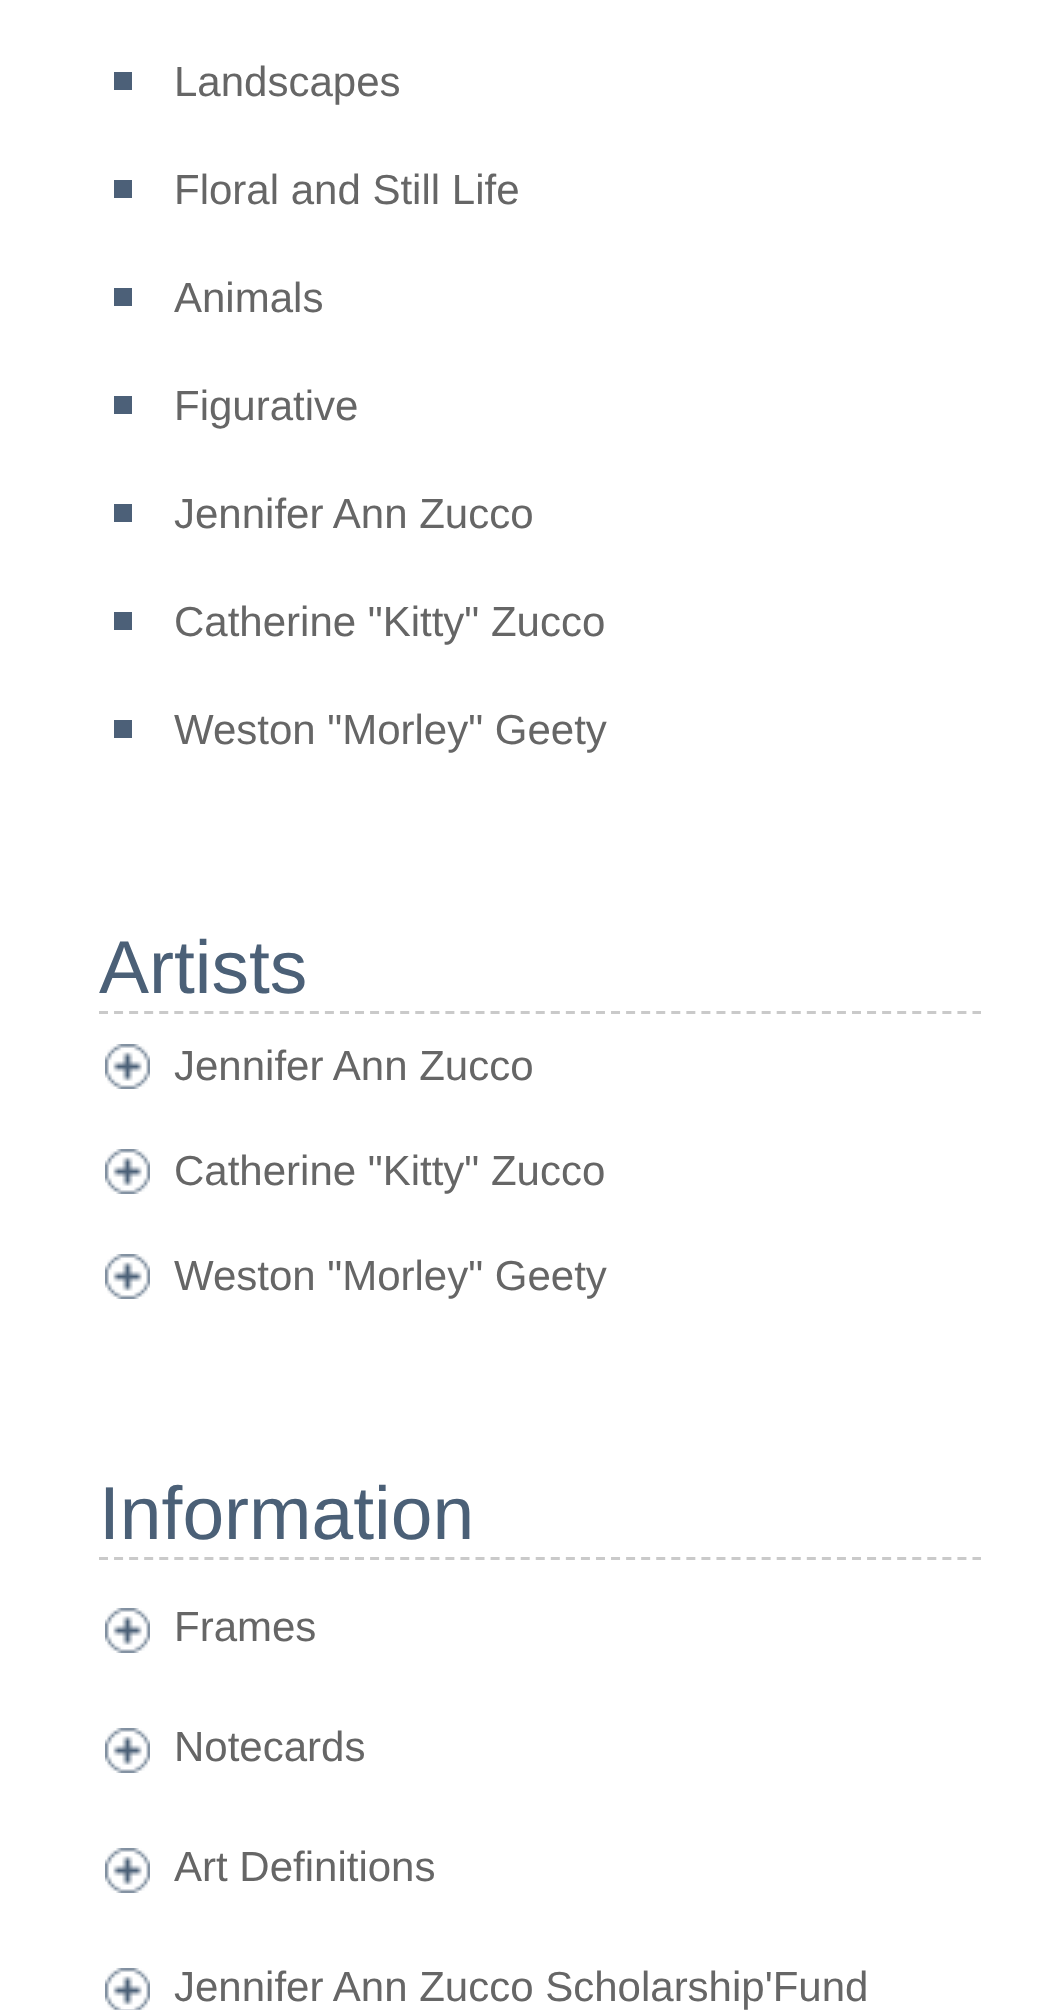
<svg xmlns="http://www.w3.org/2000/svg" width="1063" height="2010">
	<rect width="100%" height="100%" fill="#FFFFFF" />
	<rect x="114" y="72" width="18" height="18" fill="#4C6078" />
	<text x="174" y="96" font-family="Liberation Sans" font-size="42" fill="#666666">Landscapes</text>
	<rect x="114" y="180" width="18" height="18" fill="#4C6078" />
	<text x="174" y="204" font-family="Liberation Sans" font-size="42" fill="#666666">Floral and Still Life</text>
	<rect x="114" y="288" width="18" height="18" fill="#4C6078" />
	<text x="174" y="312" font-family="Liberation Sans" font-size="42" fill="#666666">Animals</text>
	<rect x="114" y="396" width="18" height="18" fill="#4C6078" />
	<text x="174" y="420" font-family="Liberation Sans" font-size="42" fill="#666666">Figurative</text>
	<rect x="114" y="504" width="18" height="18" fill="#4C6078" />
	<text x="174" y="528" font-family="Liberation Sans" font-size="42" fill="#666666">Jennifer Ann Zucco</text>
	<rect x="114" y="612" width="18" height="18" fill="#4C6078" />
	<text x="174" y="636" font-family="Liberation Sans" font-size="42" fill="#666666">Catherine "Kitty" Zucco</text>
	<rect x="114" y="720" width="18" height="18" fill="#4C6078" />
	<text x="174" y="744" font-family="Liberation Sans" font-size="42" fill="#666666">Weston "Morley" Geety</text>
	<path d="M99 1012.5H981" fill="none" stroke="#CACACA" stroke-width="3" stroke-dasharray="9 6.06" />
	<text x="99" y="993" font-family="Liberation Sans" font-size="75" fill="#4B6077">Artists</text>
	<image x="105" y="1044" width="45" height="45" href="assets/img1.png" />
	<text x="174" y="1080" font-family="Liberation Sans" font-size="42" fill="#666666">Jennifer Ann Zucco</text>
	<image x="105" y="1149" width="45" height="45" href="assets/img1.png" />
	<text x="174" y="1185" font-family="Liberation Sans" font-size="42" fill="#666666">Catherine "Kitty" Zucco</text>
	<image x="105" y="1254" width="45" height="45" href="assets/img1.png" />
	<text x="174" y="1290" font-family="Liberation Sans" font-size="42" fill="#666666">Weston "Morley" Geety</text>
	<path d="M99 1558.5H981" fill="none" stroke="#CACACA" stroke-width="3" stroke-dasharray="9 6.06" />
	<text x="99" y="1539" font-family="Liberation Sans" font-size="75" fill="#4B6077">Information</text>
	<image x="105" y="1608" width="45" height="45" href="assets/img1.png" />
	<text x="174" y="1641" font-family="Liberation Sans" font-size="42" fill="#666666">Frames</text>
	<image x="105" y="1728" width="45" height="45" href="assets/img1.png" />
	<text x="174" y="1761" font-family="Liberation Sans" font-size="42" fill="#666666">Notecards</text>
	<image x="105" y="1848" width="45" height="45" href="assets/img1.png" />
	<text x="174" y="1881" font-family="Liberation Sans" font-size="42" fill="#666666">Art Definitions</text>
	<image x="105" y="1968" width="45" height="42" href="assets/img2.png" />
	<text x="174" y="2001" font-family="Liberation Sans" font-size="42" fill="#666666">Jennifer Ann Zucco Scholarship'Fund</text>
</svg>
